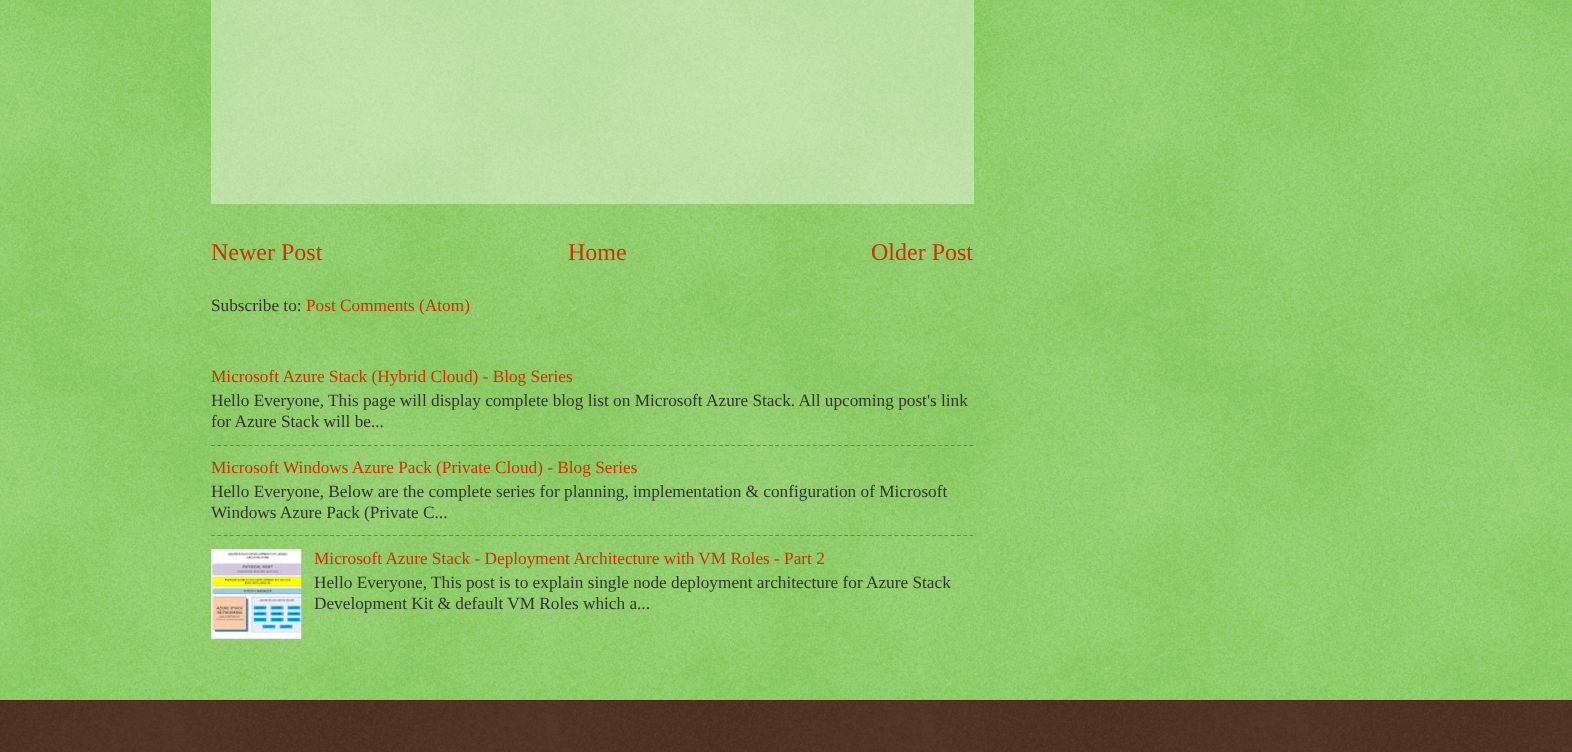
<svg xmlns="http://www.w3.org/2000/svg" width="1572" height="752">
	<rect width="100%" height="100%" fill="#66BB33" />
	<image x="0" y="0" width="1572" height="700" href="assets/img1.png" />
	<rect x="211" y="0" width="763" height="204" fill="#FFFFFF" fill-opacity="0.4" />
	<g font-family="Liberation Serif" font-size="24" fill="#CC3300">
		<text x="211" y="260">Newer Post</text>
		<text x="568" y="260">Home</text>
		<text x="871" y="260">Older Post</text>
	</g>
	<text x="211" y="311" font-family="Liberation Serif" font-size="17.25" fill="#333333">Subscribe to:</text>
	<g font-family="Liberation Serif" font-size="17.25" fill="#CC3300">
		<text x="306" y="311">Post Comments (Atom)</text>
		<text x="211" y="382">Microsoft Azure Stack (Hybrid Cloud) - Blog Series</text>
	</g>
	<g font-family="Liberation Serif" font-size="17.25" fill="#333333">
		<text x="211" y="406">Hello Everyone,</text>
		<text x="328" y="406">This page will display complete blog list on Microsoft Azure Stack. All upcoming post's link</text>
		<text x="211" y="427">for Azure Stack will be...</text>
	</g>
	<path d="M211 445.5H974" fill="none" stroke="#777777" stroke-width="1.2" stroke-dasharray="3.75 2.52" />
	<text x="211" y="473" font-family="Liberation Serif" font-size="17.25" fill="#CC3300">Microsoft Windows Azure Pack (Private Cloud) - Blog Series</text>
	<g font-family="Liberation Serif" font-size="17.25" fill="#333333">
		<text x="211" y="497">Hello Everyone, Below are the complete series for planning, implementation &amp; configuration of Microsoft</text>
		<text x="211" y="518">Windows Azure Pack (Private C...</text>
	</g>
	<path d="M211 535.5H974" fill="none" stroke="#777777" stroke-width="1.2" stroke-dasharray="3.75 2.52" />
	<image x="211" y="549" width="91" height="90" href="assets/img2.png" />
	<text x="314" y="564" font-family="Liberation Serif" font-size="17.25" fill="#CC3300">Microsoft Azure Stack - Deployment Architecture with VM Roles - Part 2</text>
	<g font-family="Liberation Serif" font-size="17.25" fill="#333333">
		<text x="314" y="588">Hello Everyone,</text>
		<text x="431" y="588">This post is to explain single node deployment architecture for Azure Stack</text>
		<text x="314" y="609">Development Kit &amp; default VM Roles which a...</text>
	</g>
	<rect x="0" y="700" width="1572" height="52" fill="#331100" />
	<image x="0" y="700" width="1572" height="52" href="assets/img3.png" />
</svg>
